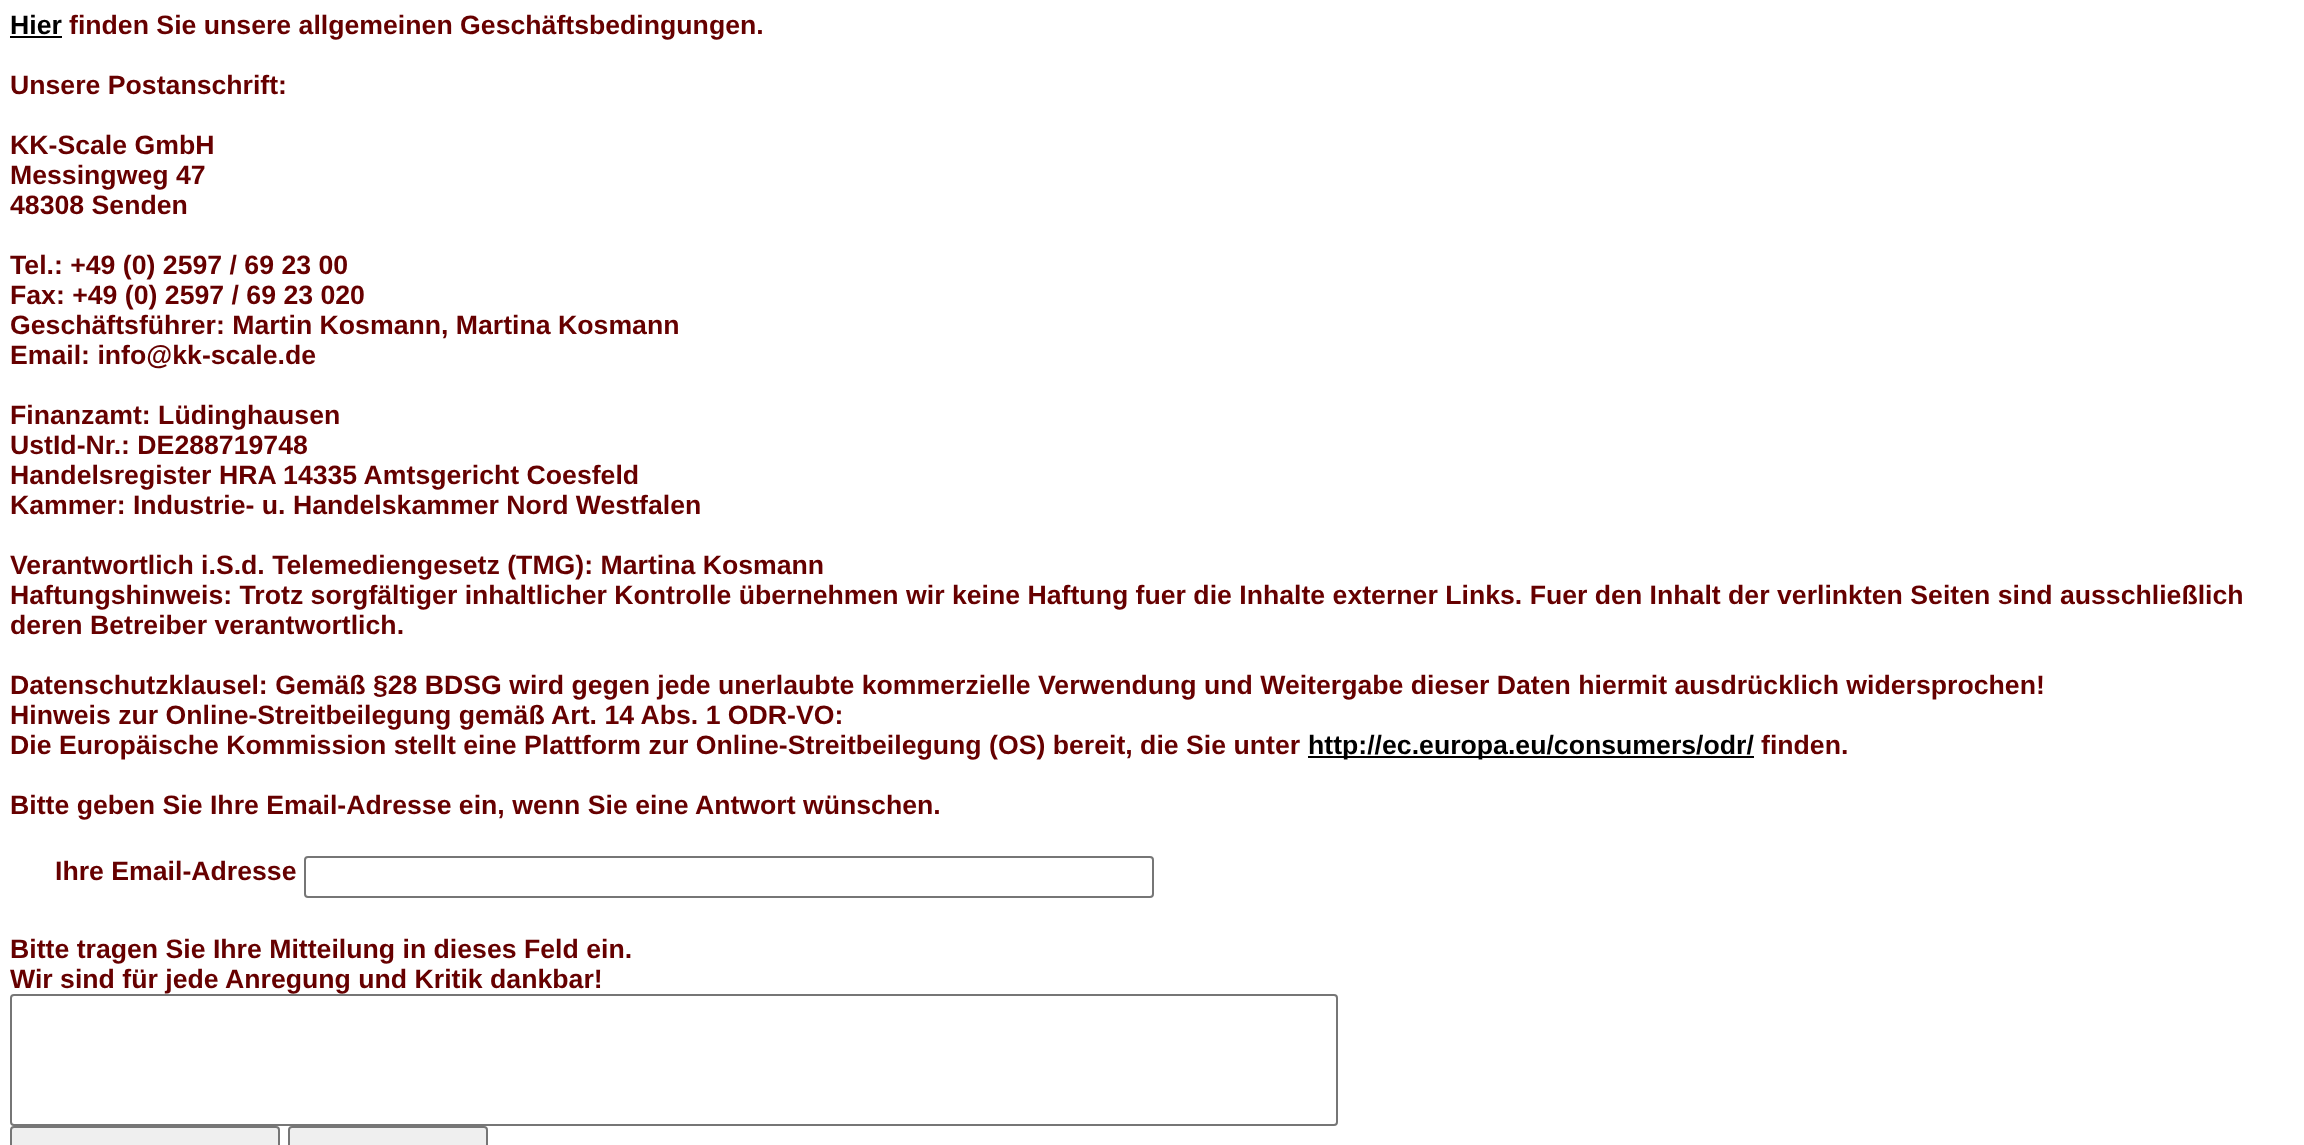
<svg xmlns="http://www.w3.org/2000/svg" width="2304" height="1145">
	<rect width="100%" height="100%" fill="#FFFFFF" />
	<text x="10" y="34" font-family="Liberation Sans" font-size="26.67" font-weight="700" fill="#000000">Hier</text>
	<rect x="10" y="36" width="52" height="2" fill="#000000" />
	<g font-family="Liberation Sans" font-size="26.67" font-weight="700" fill="#660000">
		<text x="69" y="34">finden Sie unsere allgemeinen Geschäftsbedingungen.</text>
		<text x="10" y="94">Unsere Postanschrift:</text>
		<text x="10" y="154">KK-Scale GmbH</text>
		<text x="10" y="184">Messingweg 47</text>
		<text x="10" y="214">48308 Senden</text>
		<text x="10" y="274">Tel.: +49 (0) 2597 / 69 23 00</text>
		<text x="10" y="304">Fax: +49 (0) 2597 / 69 23 020</text>
		<text x="10" y="334">Geschäftsführer: Martin Kosmann, Martina Kosmann</text>
		<text x="10" y="364">Email: info@kk-scale.de</text>
		<text x="10" y="424">Finanzamt: Lüdinghausen</text>
		<text x="10" y="454">UstId-Nr.: DE288719748</text>
		<text x="10" y="484">Handelsregister HRA 14335 Amtsgericht Coesfeld</text>
		<text x="10" y="514">Kammer: Industrie- u. Handelskammer Nord Westfalen</text>
		<text x="10" y="574">Verantwortlich i.S.d. Telemediengesetz (TMG): Martina Kosmann</text>
		<text x="10" y="604">Haftungshinweis: Trotz sorgfältiger inhaltlicher Kontrolle übernehmen wir keine Haftung fuer die Inhalte externer Links. Fuer den Inhalt der verlinkten Seiten sind ausschließlich</text>
		<text x="10" y="634">deren Betreiber verantwortlich.</text>
		<text x="10" y="694">Datenschutzklausel: Gemäß §28 BDSG wird gegen jede unerlaubte kommerzielle Verwendung und Weitergabe dieser Daten hiermit ausdrücklich widersprochen!</text>
		<text x="10" y="724">Hinweis zur Online-Streitbeilegung gemäß Art. 14 Abs. 1 ODR-VO:</text>
		<text x="10" y="754">Die Europäische Kommission stellt eine Plattform zur Online-Streitbeilegung (OS) bereit, die Sie unter</text>
	</g>
	<rect x="1308" y="756" width="446" height="2" fill="#000000" />
	<text x="1308" y="754" font-family="Liberation Sans" font-size="26.67" font-weight="700" fill="#000000">http://ec.europa.eu/consumers/odr/</text>
	<g font-family="Liberation Sans" font-size="26.67" font-weight="700" fill="#660000">
		<text x="1761" y="754">finden.</text>
		<text x="10" y="814">Bitte geben Sie Ihre Email-Adresse ein, wenn Sie eine Antwort wünschen.</text>
		<text x="55" y="880">Ihre Email-Adresse</text>
	</g>
	<rect x="305" y="857" width="848" height="40" rx="3" fill="none" stroke="#767676" stroke-width="2" />
	<g font-family="Liberation Sans" font-size="26.67" font-weight="700" fill="#660000">
		<text x="10" y="958">Bitte tragen Sie Ihre Mitteilung in dieses Feld ein.</text>
		<text x="10" y="988">Wir sind für jede Anregung und Kritik dankbar!</text>
	</g>
	<rect x="11" y="995" width="1326" height="130" rx="3" fill="none" stroke="#767676" stroke-width="2" />
	<rect x="11" y="1127" width="268" height="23" rx="3" fill="#EFEFEF" stroke="#767676" stroke-width="2" />
	<rect x="289" y="1127" width="198" height="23" rx="3" fill="#EFEFEF" stroke="#767676" stroke-width="2" />
</svg>
